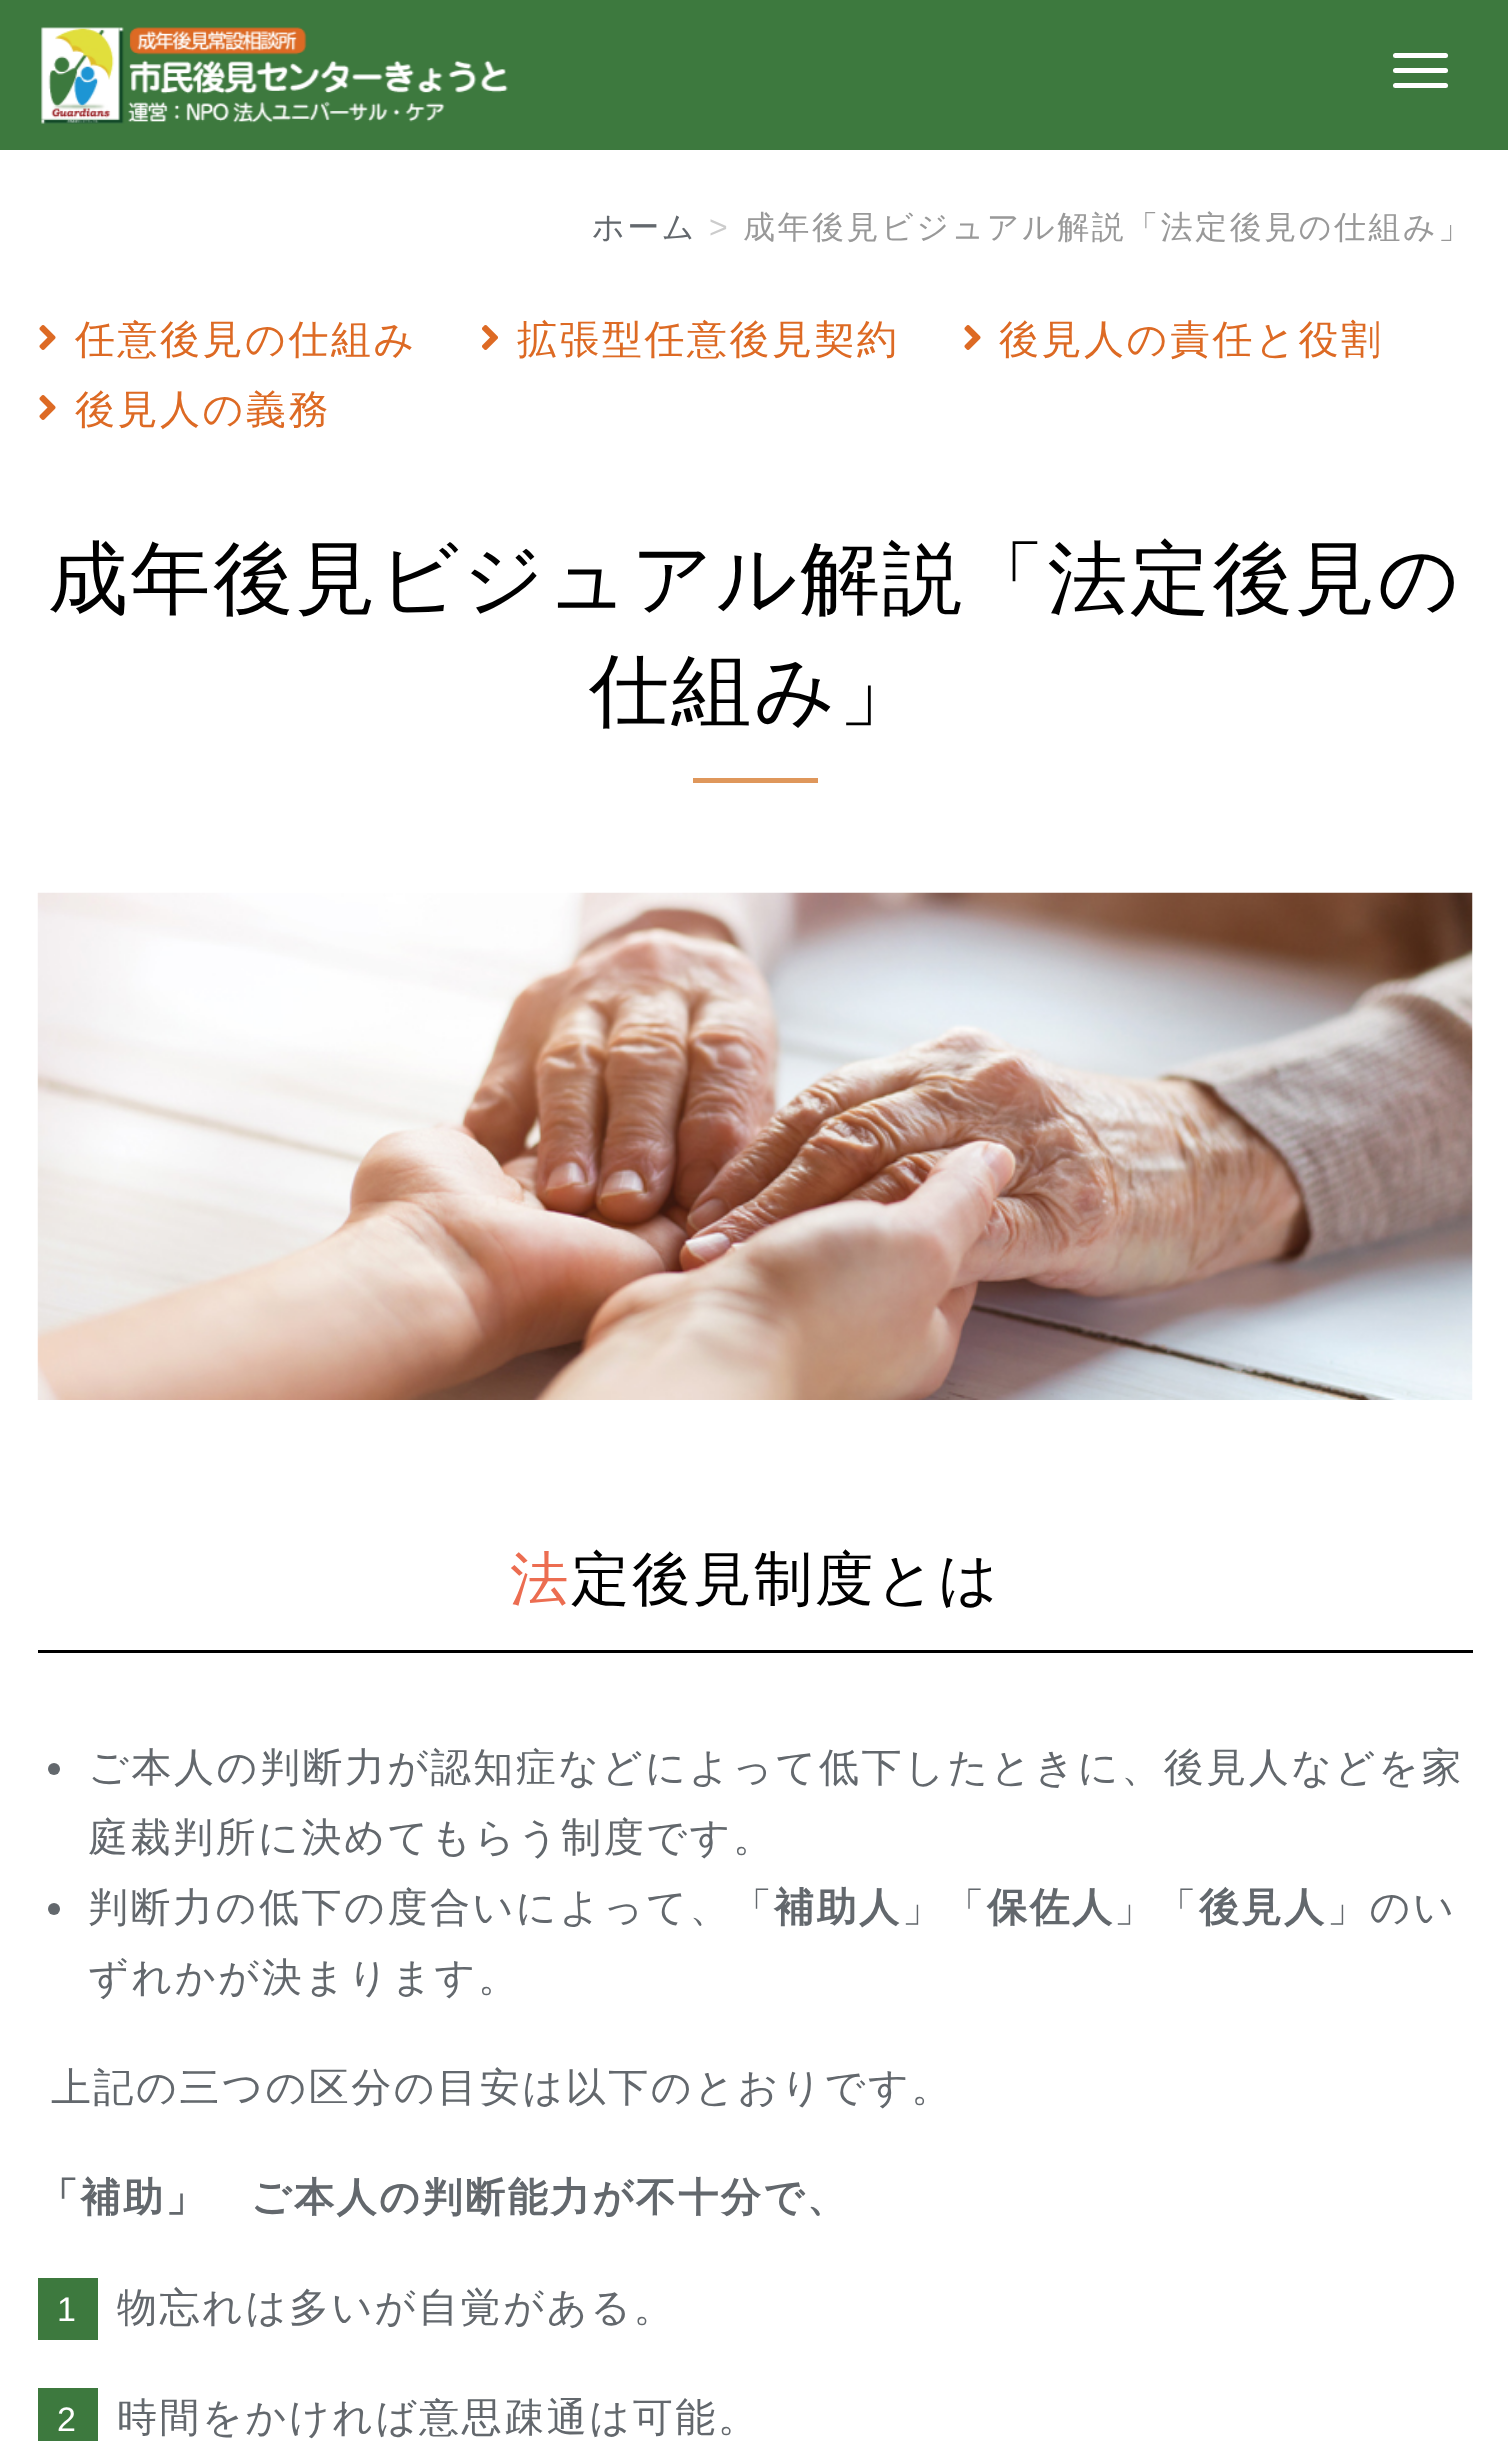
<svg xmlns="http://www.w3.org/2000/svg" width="1508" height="2441">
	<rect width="100%" height="100%" fill="#FFFFFF" />
	<rect x="0" y="0" width="1508" height="150" fill="#3D793E" />
	<rect x="1393" y="53" width="55" height="5" rx="2.5" fill="#FFFFFF" />
	<rect x="1393" y="68" width="55" height="5" rx="2.5" fill="#FFFFFF" />
	<rect x="1393" y="83" width="55" height="5" rx="2.5" fill="#FFFFFF" />
	<image x="41" y="27" width="467" height="97" href="assets/img1.png" />
	<text x="592" y="238" font-family="WenQuanYi Zen Hei" font-size="32" font-weight="500" letter-spacing="2.5" fill="#63686D">ホーム</text>
	<text x="709" y="238" font-family="Liberation Sans" font-size="32" letter-spacing="2.5" fill="#CCCCCC">&gt;</text>
	<text x="743" y="238" font-family="WenQuanYi Zen Hei" font-size="32" font-weight="500" letter-spacing="2.5" fill="#999999">成年後見ビジュアル解説「法定後見の仕組み」</text>
	<image x="39" y="325" width="17" height="25" href="assets/img2.png" />
	<text x="75" y="353" font-family="WenQuanYi Zen Hei" font-size="40" font-weight="500" letter-spacing="2.5" fill="#DD6A24">任意後見の仕組み</text>
	<image x="482" y="325" width="16" height="25" href="assets/img3.png" />
	<text x="517" y="353" font-family="WenQuanYi Zen Hei" font-size="40" font-weight="500" letter-spacing="2.5" fill="#DD6A24">拡張型任意後見契約</text>
	<image x="964" y="325" width="17" height="25" href="assets/img2.png" />
	<text x="999" y="353" font-family="WenQuanYi Zen Hei" font-size="40" font-weight="500" letter-spacing="2.5" fill="#DD6A24">後見人の責任と役割</text>
	<image x="39" y="395" width="17" height="25" href="assets/img2.png" />
	<text x="75" y="423" font-family="WenQuanYi Zen Hei" font-size="40" font-weight="500" letter-spacing="2.5" fill="#DD6A24">後見人の義務</text>
	<g font-family="WenQuanYi Zen Hei" font-size="80" font-weight="500" letter-spacing="2.5" fill="#000000">
		<text x="48" y="606">成年後見ビジュアル解説「法定後見の</text>
		<text x="589" y="718">仕組み」</text>
	</g>
	<rect x="693" y="778" width="125" height="5" fill="#DF975B" />
	<image x="37" y="892" width="1436" height="508" href="assets/img4.png" />
	<rect x="38" y="1650" width="1435" height="3" fill="#000000" />
	<text x="510" y="1599" font-family="Noto Sans" font-size="58.5" font-weight="500" letter-spacing="2.5" fill="#EC6D51">法</text>
	<text x="571" y="1599" font-family="WenQuanYi Zen Hei" font-size="58.5" font-weight="500" letter-spacing="2.5" fill="#000000">定後見制度とは</text>
	<circle cx="54" cy="1769" r="6" fill="#63686D" />
	<g font-family="WenQuanYi Zen Hei" font-size="40" font-weight="500" letter-spacing="2.5" fill="#63686D">
		<text x="88" y="1781">ご本人の判断力が認知症などによって低下したときに、後見人などを家</text>
		<text x="88" y="1851">庭裁判所に決めてもらう制度です。</text>
	</g>
	<circle cx="54" cy="1909" r="6" fill="#63686D" />
	<text x="88" y="1921" font-family="WenQuanYi Zen Hei" font-size="40" font-weight="500" letter-spacing="2.5" fill="#63686D">判断力の低下の度合いによって、「</text>
	<text x="774" y="1921" font-family="WenQuanYi Zen Hei" font-size="40" font-weight="700" letter-spacing="2.5" fill="#63686D">補助人</text>
	<text x="902" y="1921" font-family="WenQuanYi Zen Hei" font-size="40" font-weight="500" letter-spacing="2.5" fill="#63686D">」「</text>
	<text x="987" y="1921" font-family="WenQuanYi Zen Hei" font-size="40" font-weight="700" letter-spacing="2.5" fill="#63686D">保佐人</text>
	<text x="1114" y="1921" font-family="WenQuanYi Zen Hei" font-size="40" font-weight="500" letter-spacing="2.5" fill="#63686D">」「</text>
	<text x="1199" y="1921" font-family="WenQuanYi Zen Hei" font-size="40" font-weight="700" letter-spacing="2.5" fill="#63686D">後見人</text>
	<g font-family="WenQuanYi Zen Hei" font-size="40" font-weight="500" letter-spacing="2.5" fill="#63686D">
		<text x="1327" y="1921">」のい</text>
		<text x="88" y="1991">ずれかが決まります。</text>
		<text x="51" y="2101">上記の三つの区分の目安は以下のとおりです。</text>
	</g>
	<text x="38" y="2211" font-family="WenQuanYi Zen Hei" font-size="40" font-weight="700" letter-spacing="2.5" fill="#63686D">「補助」　ご本人の判断能力が不十分で、</text>
	<rect x="38" y="2278" width="60" height="62" fill="#3D793E" />
	<text x="57" y="2321" font-family="Liberation Sans" font-size="34" letter-spacing="2.5" fill="#FFFFFF">1</text>
	<text x="117" y="2321" font-family="WenQuanYi Zen Hei" font-size="40" font-weight="500" letter-spacing="2.5" fill="#63686D">物忘れは多いが自覚がある。</text>
	<rect x="38" y="2388" width="60" height="53" fill="#3D793E" />
	<text x="57" y="2431" font-family="Liberation Sans" font-size="34" letter-spacing="2.5" fill="#FFFFFF">2</text>
	<text x="117" y="2431" font-family="WenQuanYi Zen Hei" font-size="40" font-weight="500" letter-spacing="2.5" fill="#63686D">時間をかければ意思疎通は可能。</text>
</svg>
